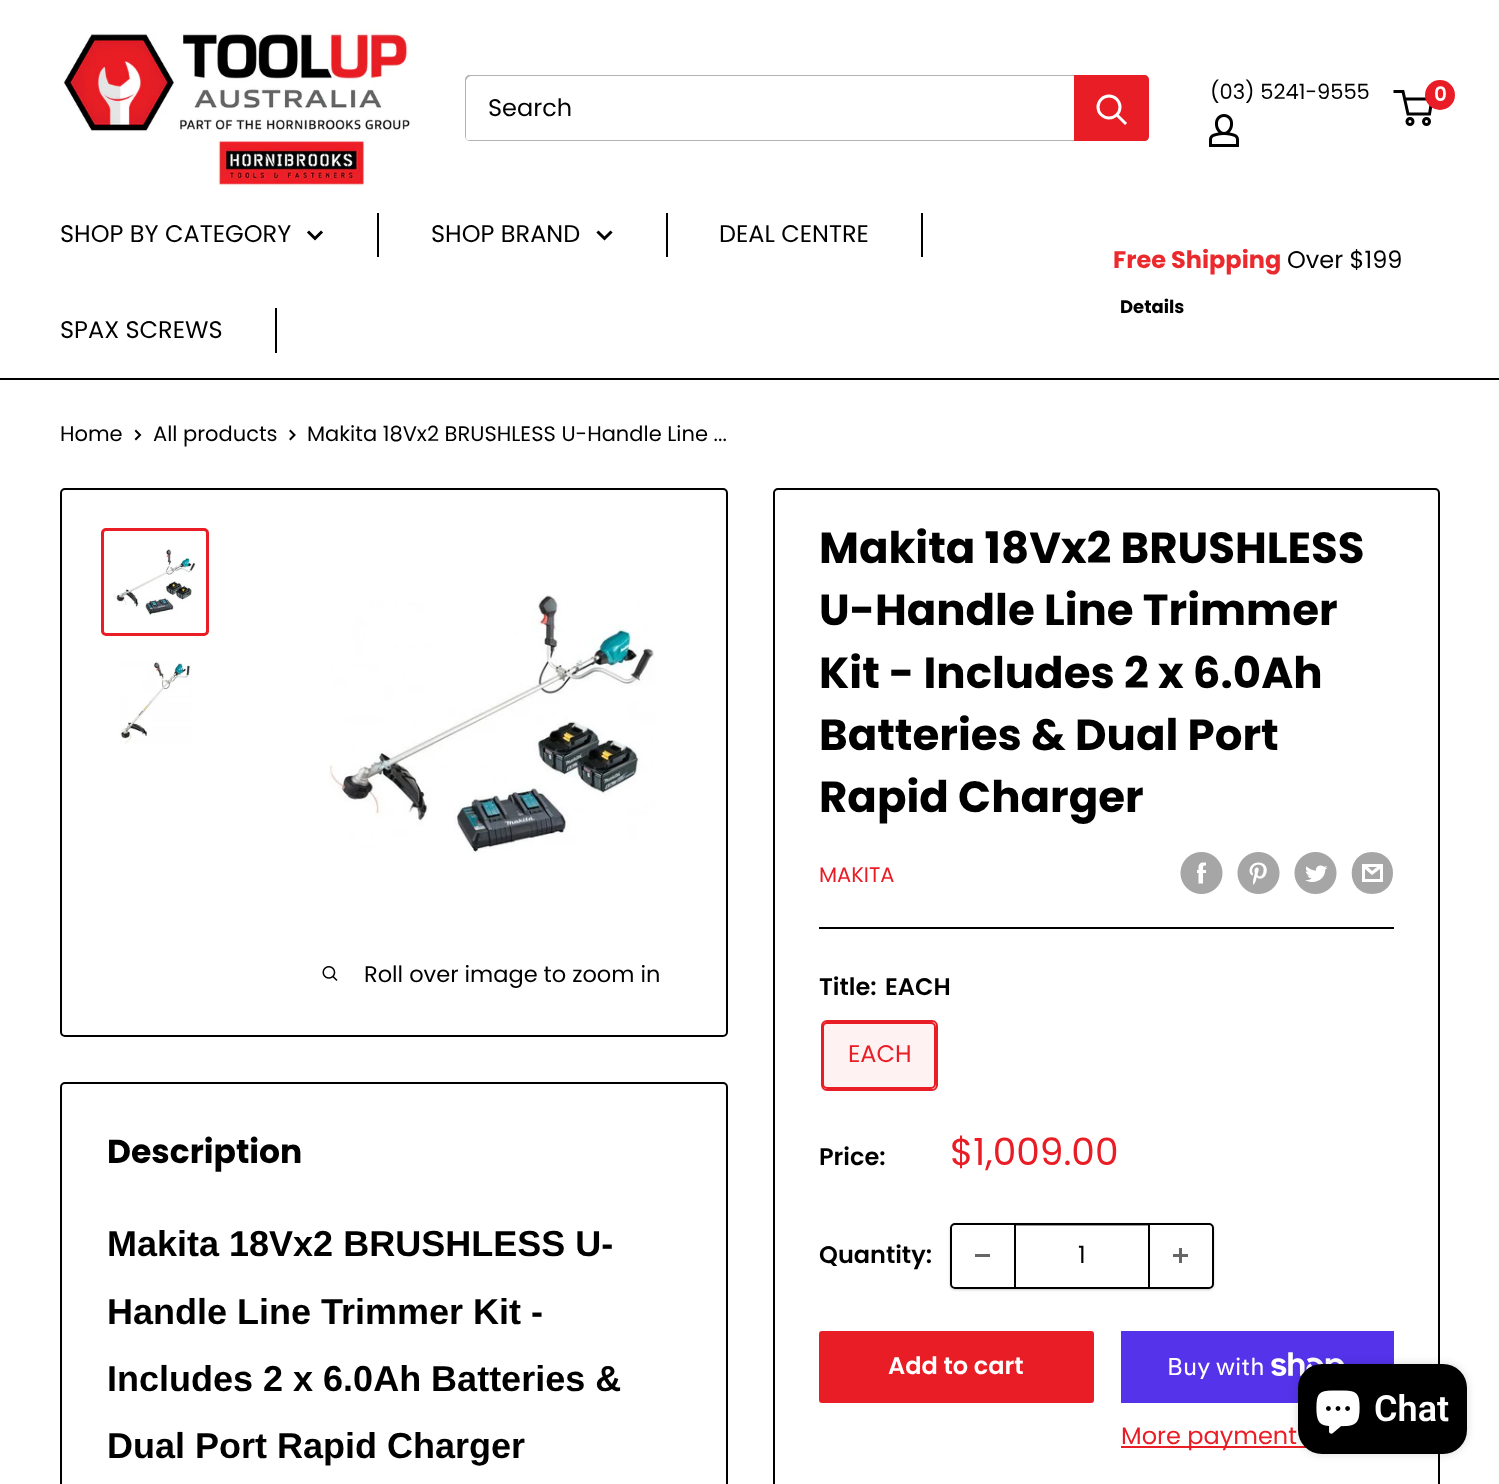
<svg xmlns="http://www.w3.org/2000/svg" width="1499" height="1484">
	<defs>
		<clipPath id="clip1"><path d="M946 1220H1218V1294H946ZM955 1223H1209C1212 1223 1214 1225 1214 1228V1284C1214 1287 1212 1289 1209 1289H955C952 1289 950 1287 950 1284V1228C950 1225 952 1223 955 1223Z" clip-rule="evenodd" /></clipPath>
	</defs>
	<rect width="100%" height="100%" fill="#FFFFFF" />
	<image x="63" y="30" width="348" height="157" href="assets/img1.png" />
	<text x="1210" y="99" font-family="Poppins" font-size="21" fill="#000000">(03) 5241-9555</text>
	<image x="1209" y="114" width="30" height="33" href="assets/img2.png" />
	<circle cx="1410" cy="121.5" r="3" fill="none" stroke="#000000" stroke-width="3" />
	<circle cx="1426.5" cy="121.5" r="3" fill="none" stroke="#000000" stroke-width="3" />
	<path d="M1404.5 99H1432L1429.5 114H1408L1403 91.5H1393.5" fill="none" stroke="#000000" stroke-width="3" />
	<circle cx="1440" cy="95" r="15" fill="#E91D25" />
	<text x="1434" y="101" font-family="Poppins" font-size="20" font-weight="600" fill="#FFFFFF">0</text>
	<path d="M466 139C467 140 468 141 470 141H1144C1147 141 1149 139 1149 136V80C1149 78 1148 77 1147 76L1148 78V135C1148 137 1145 140 1143 140H468Z" fill="#B3B3B3" />
	<path d="M471 76H1146L1148 77C1147 76 1146 75 1144 75H470C467 75 465 77 465 80V136C465 138 466 139 467 140L466 138V81C466 79 469 76 471 76Z" fill="#B3B3B3" />
	<text x="488" y="116" font-family="Poppins" font-size="24" fill="#000000">Search</text>
	<path d="M1074 75H1144C1147 75 1149 77 1149 80V136C1149 139 1147 141 1144 141H1074Z" fill="#E91D25" />
	<path d="M1125 123L1117.5 115.5" fill="none" stroke="#FFFFFF" stroke-width="3" stroke-linecap="square" />
	<circle cx="1109" cy="107" r="11" fill="none" stroke="#FFFFFF" stroke-width="3" />
	<rect x="0" y="378" width="1499" height="2" fill="#000000" />
	<rect x="377" y="213" width="2" height="44" fill="#000000" />
	<text x="60" y="242" font-family="Poppins" font-size="24" fill="#000000">SHOP BY CATEGORY</text>
	<path d="M321 232.5L315 238.5L309 232.5" fill="none" stroke="#000000" stroke-width="3" stroke-linecap="square" />
	<rect x="666" y="213" width="2" height="44" fill="#000000" />
	<text x="431" y="242" font-family="Poppins" font-size="24" fill="#000000">SHOP BRAND</text>
	<path d="M610.5 232.5L604.5 238.5L598.5 232.5" fill="none" stroke="#000000" stroke-width="3" stroke-linecap="square" />
	<rect x="921" y="213" width="2" height="44" fill="#000000" />
	<text x="719" y="242" font-family="Poppins" font-size="24" fill="#000000">DEAL CENTRE</text>
	<rect x="275" y="308" width="2" height="45" fill="#000000" />
	<text x="60" y="338" font-family="Poppins" font-size="24" fill="#000000">SPAX SCREWS</text>
	<text x="1113" y="268" font-family="Poppins" font-size="24" font-weight="700" fill="#EB2A2E">Free Shipping</text>
	<text x="1287" y="268" font-family="Poppins" font-size="24" fill="#000000">Over $199</text>
	<text x="1120" y="313" font-family="Poppins" font-size="18" font-weight="700" fill="#000000">Details</text>
	<text x="60" y="441" font-family="Poppins" font-size="21" fill="#000000">Home</text>
	<path d="M136 431L140 435L136 439" fill="none" stroke="#000000" stroke-width="2" stroke-linecap="square" />
	<text x="153" y="441" font-family="Poppins" font-size="21" fill="#000000">All products</text>
	<path d="M290.5 431L294.5 435L290.5 439" fill="none" stroke="#000000" stroke-width="2" stroke-linecap="square" />
	<text x="307" y="441" font-family="Poppins" font-size="21" fill="#000000">Makita 18Vx2 BRUSHLESS U-Handle Line ...</text>
	<rect x="61" y="489" width="666" height="547" rx="4" fill="none" stroke="#000000" stroke-width="2" />
	<rect x="102.5" y="529.5" width="105" height="105" rx="3.5" fill="none" stroke="#E91D25" stroke-width="3" />
	<image x="113" y="549" width="83" height="67" href="assets/img3.png" />
	<image x="119" y="662" width="73" height="82" href="assets/img4.png" />
	<image x="329" y="595" width="326" height="259" href="assets/img5.png" />
	<image x="322" y="966" width="16" height="15" href="assets/img6.png" />
	<text x="364" y="982" font-family="Poppins" font-size="22.5" fill="#000000">Roll over image to zoom in</text>
	<rect x="774" y="489" width="665" height="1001" rx="4" fill="none" stroke="#000000" stroke-width="2" />
	<g font-family="Poppins" font-size="43.5" font-weight="700" fill="#000000">
		<text x="819" y="563">Makita 18Vx2 BRUSHLESS</text>
		<text x="819" y="625">U-Handle Line Trimmer</text>
		<text x="819" y="688">Kit - Includes 2 x 6.0Ah</text>
		<text x="819" y="750">Batteries &amp; Dual Port</text>
		<text x="819" y="812">Rapid Charger</text>
	</g>
	<text x="819" y="882" font-family="Poppins" font-size="21" fill="#E91D25">MAKITA</text>
	<image x="1180" y="852" width="43" height="42" href="assets/img7.png" />
	<image x="1237" y="852" width="43" height="42" href="assets/img8.png" />
	<image x="1294" y="852" width="43" height="42" href="assets/img9.png" />
	<path d="M1372 894C1345 894 1345 852 1372 852C1400 852 1400 894 1372 894ZM1368 867H1377L1372 871ZM1380 869V879H1365V869L1372 875ZM1383 864H1362V882H1383Z" fill="#A6A6A6" />
	<rect x="819" y="927" width="575" height="2" fill="#000000" />
	<g font-family="Poppins" font-size="24" font-weight="600" fill="#000000">
		<text x="819" y="995">Title:</text>
		<text x="885" y="995">EACH</text>
	</g>
	<rect x="822" y="1021" width="115" height="69" rx="5" fill="none" stroke="#E91D25" stroke-width="2" />
	<rect x="823" y="1022" width="113" height="67" fill="#E91D25" fill-opacity="0.06" />
	<rect x="823" y="1023" width="112" height="65" rx="4" fill="none" stroke="#E91D25" stroke-width="2" />
	<text x="848" y="1062" font-family="Poppins" font-size="24" fill="#E91D25">EACH</text>
	<text x="819" y="1165" font-family="Poppins" font-size="24" font-weight="600" fill="#000000">Price:</text>
	<text x="950" y="1165" font-family="Poppins" font-size="37.5" fill="#E91D25">$1,009.00</text>
	<text x="819" y="1263" font-family="Poppins" font-size="24" font-weight="600" fill="#000000">Quantity:</text>
	<g clip-path="url(#clip1)">
		<rect x="950" y="1224" width="264" height="66" rx="5" fill="#000000" fill-opacity="0.2" filter="blur(1px)" />
	</g>
	<rect x="951" y="1224" width="262" height="64" rx="4" fill="none" stroke="#000000" stroke-width="2" />
	<rect x="975" y="1254" width="15" height="3" fill="#666666" />
	<rect x="1016" y="1225" width="132" height="1" fill="#000000" fill-opacity="0.4" />
	<rect x="1148" y="1224" width="2" height="63" fill="#000000" />
	<rect x="1014" y="1224" width="2" height="63" fill="#000000" />
	<text x="1078" y="1263" font-family="Poppins" font-size="24" fill="#000000">1</text>
	<image x="1173" y="1248" width="15" height="15" href="assets/img10.png" />
	<rect x="819" y="1331" width="275" height="72" rx="3" fill="#E91D25" />
	<text x="888" y="1374" font-family="Poppins" font-size="24" font-weight="600" fill="#FFFFFF">Add to cart</text>
	<rect x="1121" y="1331" width="273" height="72" fill="#5433EB" />
	<text x="1167" y="1375" font-family="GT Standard" font-size="24" fill="#FFFFFF">Buy with</text>
	<image x="1271" y="1352" width="73" height="24" href="assets/img11.png" />
	<rect x="1121" y="1446" width="186" height="2" fill="#E91D25" />
	<text x="1121" y="1444" font-family="Poppins" font-size="24" fill="#E91D25">More payment</text>
	<rect x="61" y="1083" width="666" height="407" rx="4" fill="none" stroke="#000000" stroke-width="2" />
	<text x="107" y="1163" font-family="Poppins" font-size="33" font-weight="700" fill="#000000">Description</text>
	<g font-family="Liberation Sans" font-size="36" font-weight="700" fill="#000000">
		<text x="107" y="1256">Makita 18Vx2 BRUSHLESS U-</text>
		<text x="107" y="1324">Handle Line Trimmer Kit -</text>
		<text x="107" y="1391">Includes 2 x 6.0Ah Batteries &amp;</text>
		<text x="107" y="1458">Dual Port Rapid Charger</text>
	</g>
	<rect x="1298" y="1364" width="169" height="90" rx="24" fill="#000000" fill-opacity="0.15" filter="blur(4px)" />
	<rect x="1298" y="1364" width="169" height="90" rx="24" fill="#000000" />
	<image x="1316" y="1390" width="44" height="44" href="assets/img12.png" />
	<text x="1374" y="1421" font-family="Roboto" font-size="36" font-weight="600" fill="#FFFFFF">Chat</text>
</svg>
